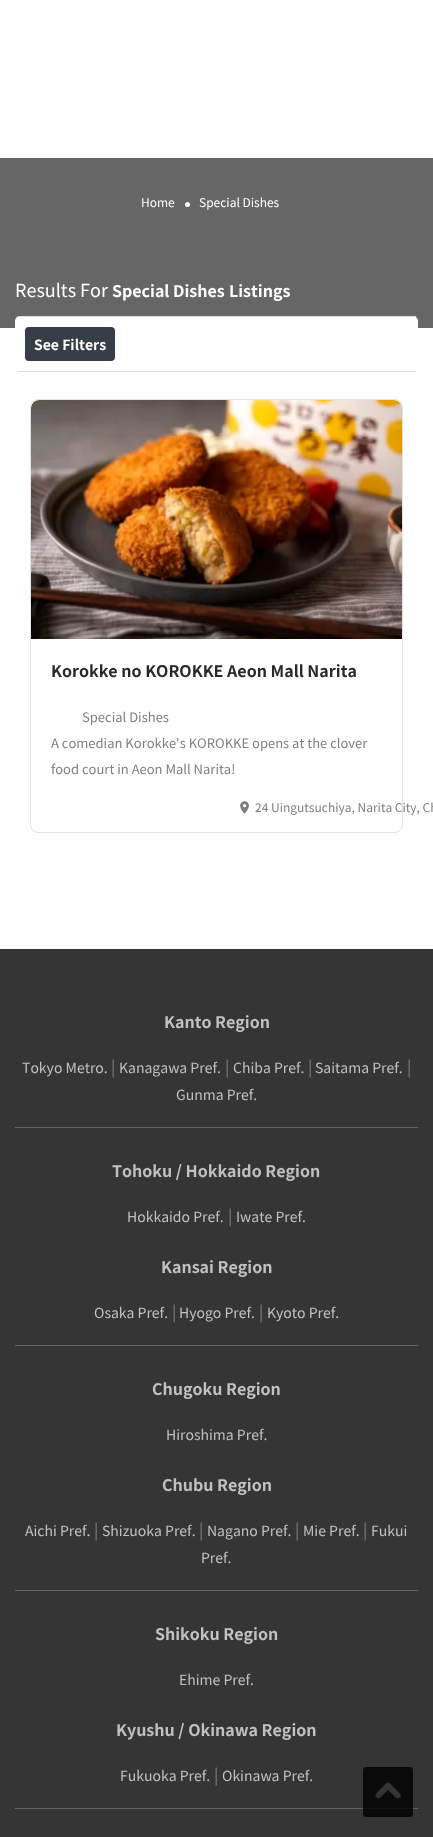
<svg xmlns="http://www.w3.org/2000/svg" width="433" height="1837">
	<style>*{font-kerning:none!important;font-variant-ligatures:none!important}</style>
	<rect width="100%" height="100%" fill="#FFFFFF" />
	<rect x="0" y="158" width="433" height="170" fill="#666666" />
	<text x="141" y="207" font-family="Noto Sans CJK JP" font-size="12" fill="#FFFFFF">Home</text>
	<circle cx="187.5" cy="204.5" r="2.5" fill="#FFFFFF" />
	<text x="199" y="207" font-family="Noto Sans CJK JP" font-size="12" fill="#FFFFFF">Special Dishes</text>
	<text x="15" y="297" font-family="Noto Sans CJK JP" font-size="18" fill="#FFFFFF">Results For</text>
	<g font-family="Noto Sans CJK JP" font-size="16" font-weight="700" fill="#FFFFFF">
		<text x="112" y="297">Special Dishes</text>
		<text x="229" y="297">Listings</text>
	</g>
	<rect x="15" y="316" width="403" height="56" rx="5" fill="#FFFFFF" />
	<rect x="18" y="316" width="398" height="1" fill="#DEDEDE" />
	<rect x="18" y="371" width="398" height="1" fill="#DEDEDE" />
	<rect x="25" y="327" width="90" height="34" rx="4" fill="#363F48" />
	<text x="34" y="350" font-family="Noto Sans CJK JP" font-size="14" font-weight="700" fill="#FFFFFF">See Filters</text>
	<rect x="30.5" y="399.5" width="372" height="433" rx="7.5" fill="none" stroke="#E3E3E3" />
	<image x="31" y="400" width="371" height="239" href="assets/img1.png" />
	<text x="51" y="677" font-family="Noto Sans CJK JP" font-size="16" font-weight="700" fill="#292929">Korokke no KOROKKE Aeon Mall Narita</text>
	<g font-family="Noto Sans CJK JP" font-size="13" fill="#7F7F7F">
		<text x="82" y="722">Special Dishes</text>
		<text x="51" y="748">A comedian Korokke's KOROKKE opens at the clover</text>
		<text x="51" y="774">food court in Aeon Mall Narita!</text>
	</g>
	<image x="240" y="801" width="9" height="13" href="assets/img2.png" />
	<text x="255" y="812" font-family="Noto Sans CJK JP" font-size="12" fill="#7F7F7F">24 Uingutsuchiya, Narita City, Ch</text>
	<rect x="0" y="949" width="433" height="888" fill="#353535" />
	<text x="164" y="1028" font-family="Noto Sans CJK JP" font-size="16" font-weight="700" fill="#C1C1C1">Kanto Region</text>
	<text x="22" y="1073" font-family="Noto Sans CJK JP" font-size="14" fill="#C1C1C1">Tokyo Metro.</text>
	<text x="111" y="1073" font-family="Noto Sans CJK JP" font-size="16" fill="#7F7F7F">|</text>
	<text x="119" y="1073" font-family="Noto Sans CJK JP" font-size="14" fill="#C1C1C1">Kanagawa Pref.</text>
	<text x="225" y="1073" font-family="Noto Sans CJK JP" font-size="16" fill="#7F7F7F">|</text>
	<text x="233" y="1073" font-family="Noto Sans CJK JP" font-size="14" fill="#C1C1C1">Chiba Pref.</text>
	<text x="308" y="1073" font-family="Noto Sans CJK JP" font-size="16" fill="#7F7F7F">|</text>
	<text x="315" y="1073" font-family="Noto Sans CJK JP" font-size="14" fill="#C1C1C1">Saitama Pref.</text>
	<text x="407" y="1073" font-family="Noto Sans CJK JP" font-size="16" fill="#7F7F7F">|</text>
	<text x="176" y="1100" font-family="Noto Sans CJK JP" font-size="14" fill="#C1C1C1">Gunma Pref.</text>
	<rect x="15" y="1127" width="403" height="1" fill="#636363" />
	<text x="112" y="1177" font-family="Noto Sans CJK JP" font-size="16" font-weight="700" fill="#C1C1C1">Tohoku / Hokkaido Region</text>
	<text x="127" y="1222" font-family="Noto Sans CJK JP" font-size="14" fill="#C1C1C1">Hokkaido Pref.</text>
	<text x="228" y="1222" font-family="Noto Sans CJK JP" font-size="16" fill="#7F7F7F">|</text>
	<text x="236" y="1222" font-family="Noto Sans CJK JP" font-size="14" fill="#C1C1C1">Iwate Pref.</text>
	<text x="161" y="1273" font-family="Noto Sans CJK JP" font-size="16" font-weight="700" fill="#C1C1C1">Kansai Region</text>
	<text x="94" y="1318" font-family="Noto Sans CJK JP" font-size="14" fill="#C1C1C1">Osaka Pref.</text>
	<text x="172" y="1318" font-family="Noto Sans CJK JP" font-size="16" fill="#7F7F7F">|</text>
	<text x="179" y="1318" font-family="Noto Sans CJK JP" font-size="14" fill="#C1C1C1">Hyogo Pref.</text>
	<text x="259" y="1318" font-family="Noto Sans CJK JP" font-size="16" fill="#7F7F7F">|</text>
	<text x="267" y="1318" font-family="Noto Sans CJK JP" font-size="14" fill="#C1C1C1">Kyoto Pref.</text>
	<rect x="15" y="1345" width="403" height="1" fill="#636363" />
	<text x="152" y="1395" font-family="Noto Sans CJK JP" font-size="16" font-weight="700" fill="#C1C1C1">Chugoku Region</text>
	<text x="166" y="1440" font-family="Noto Sans CJK JP" font-size="14" fill="#C1C1C1">Hiroshima Pref.</text>
	<text x="162" y="1491" font-family="Noto Sans CJK JP" font-size="16" font-weight="700" fill="#C1C1C1">Chubu Region</text>
	<text x="25" y="1536" font-family="Noto Sans CJK JP" font-size="14" fill="#C1C1C1">Aichi Pref.</text>
	<text x="94" y="1536" font-family="Noto Sans CJK JP" font-size="16" fill="#7F7F7F">|</text>
	<text x="102" y="1536" font-family="Noto Sans CJK JP" font-size="14" fill="#C1C1C1">Shizuoka Pref.</text>
	<text x="199" y="1536" font-family="Noto Sans CJK JP" font-size="16" fill="#7F7F7F">|</text>
	<text x="207" y="1536" font-family="Noto Sans CJK JP" font-size="14" fill="#C1C1C1">Nagano Pref.</text>
	<text x="295" y="1536" font-family="Noto Sans CJK JP" font-size="16" fill="#7F7F7F">|</text>
	<text x="303" y="1536" font-family="Noto Sans CJK JP" font-size="14" fill="#C1C1C1">Mie Pref.</text>
	<text x="363" y="1536" font-family="Noto Sans CJK JP" font-size="16" fill="#7F7F7F">|</text>
	<g font-family="Noto Sans CJK JP" font-size="14" fill="#C1C1C1">
		<text x="371" y="1536">Fukui</text>
		<text x="201" y="1563">Pref.</text>
	</g>
	<rect x="15" y="1590" width="403" height="1" fill="#636363" />
	<text x="155" y="1640" font-family="Noto Sans CJK JP" font-size="16" font-weight="700" fill="#C1C1C1">Shikoku Region</text>
	<text x="179" y="1685" font-family="Noto Sans CJK JP" font-size="14" fill="#C1C1C1">Ehime Pref.</text>
	<text x="116" y="1736" font-family="Noto Sans CJK JP" font-size="16" font-weight="700" fill="#C1C1C1">Kyushu / Okinawa Region</text>
	<text x="120" y="1781" font-family="Noto Sans CJK JP" font-size="14" fill="#C1C1C1">Fukuoka Pref.</text>
	<text x="214" y="1781" font-family="Noto Sans CJK JP" font-size="16" fill="#7F7F7F">|</text>
	<text x="222" y="1781" font-family="Noto Sans CJK JP" font-size="14" fill="#C1C1C1">Okinawa Pref.</text>
	<rect x="15" y="1808" width="403" height="1" fill="#636363" />
	<image x="363" y="1767" width="50" height="50" href="assets/img3.png" />
</svg>
